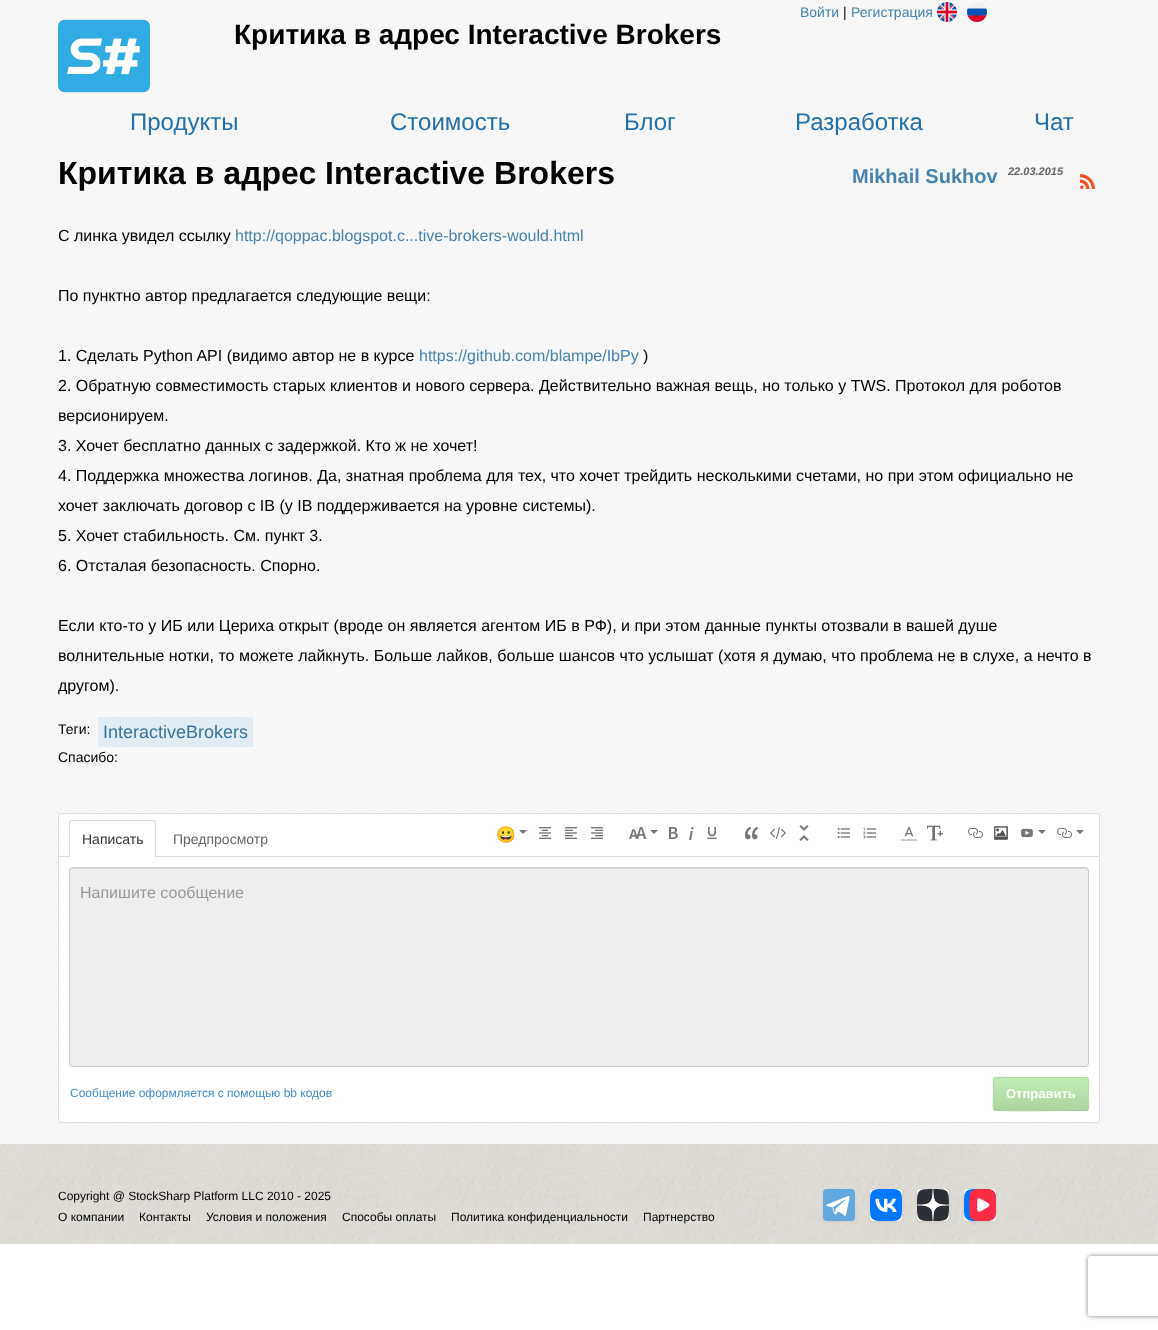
<svg xmlns="http://www.w3.org/2000/svg" width="1158" height="1330">
	<defs>
		<clipPath id="clip1"><rect x="993" y="1077" width="96" height="34" rx="3" /></clipPath>
		<linearGradient id="g1" gradientUnits="userSpaceOnUse" x1="1041" y1="1046" x2="1041" y2="1078"><stop offset="0" stop-color="#C3ECB4" /><stop offset="1" stop-color="#ADD39F" /></linearGradient>
		<linearGradient id="g2" gradientUnits="userSpaceOnUse" x1="1041" y1="1078" x2="1041" y2="1110"><stop offset="0" stop-color="#C3ECB4" /><stop offset="1" stop-color="#ADD39F" /></linearGradient>
		<linearGradient id="g3" gradientUnits="userSpaceOnUse" x1="1041" y1="1110" x2="1041" y2="1142"><stop offset="0" stop-color="#C3ECB4" /><stop offset="1" stop-color="#ADD39F" /></linearGradient>
		<clipPath id="clip2"><path d="M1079 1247H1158V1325H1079ZM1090 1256H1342C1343 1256 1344 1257 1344 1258V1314C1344 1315 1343 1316 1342 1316H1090C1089 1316 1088 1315 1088 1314V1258C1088 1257 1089 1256 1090 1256Z" clip-rule="evenodd" /></clipPath>
	</defs>
	<rect width="100%" height="100%" fill="#FFFFFF" />
	<image x="0" y="0" width="1158" height="1144" href="assets/img1.png" />
	<text x="800" y="17" font-family="Liberation Sans" font-size="14" fill="#4883B0">Войти</text>
	<text x="843" y="17" font-family="Liberation Sans" font-size="14" fill="#000000">|</text>
	<text x="851" y="17" font-family="Liberation Sans" font-size="14" fill="#4883B0">Регистрация</text>
	<image x="937" y="2" width="20" height="20" href="assets/img2.png" />
	<image x="967" y="2" width="20" height="20" href="assets/img3.png" />
	<image x="58" y="19" width="92" height="74" href="assets/img4.png" />
	<text x="234" y="44" font-family="Liberation Sans" font-size="28" font-weight="700" fill="#000000">Критика в адрес Interactive Brokers</text>
	<g font-family="Liberation Sans" font-size="24" fill="#2570AA">
		<text x="130" y="130">Продукты</text>
		<text x="390" y="130">Стоимость</text>
		<text x="624" y="130">Блог</text>
		<text x="795" y="130">Разработка</text>
		<text x="1034" y="130">Чат</text>
	</g>
	<text x="58" y="184" font-family="Liberation Sans" font-size="32" font-weight="700" fill="#000000">Критика в адрес Interactive Brokers</text>
	<text x="852" y="183" font-family="Liberation Sans" font-size="20" font-weight="700" fill="#4883B0">Mikhail Sukhov</text>
	<text x="1008" y="175" font-family="Liberation Sans" font-size="11" font-weight="700" font-style="italic" fill="#666666">22.03.2015</text>
	<image x="1080" y="174" width="15" height="15" href="assets/img5.png" />
	<text x="58" y="241" font-family="Liberation Sans" font-size="16" fill="#000000">С линка увидел ссылку</text>
	<text x="235" y="241" font-family="Liberation Sans" font-size="16" fill="#4883B0">http://qoppac.blogspot.c...tive-brokers-would.html</text>
	<g font-family="Liberation Sans" font-size="16" fill="#000000">
		<text x="58" y="301">По пунктно автор предлагается следующие вещи:</text>
		<text x="58" y="361">1. Сделать Python API (видимо автор не в курсе</text>
	</g>
	<text x="419" y="361" font-family="Liberation Sans" font-size="16" fill="#4883B0">https://github.com/blampe/IbPy</text>
	<g font-family="Liberation Sans" font-size="16" fill="#000000">
		<text x="643" y="361">)</text>
		<text x="58" y="391">2. Обратную совместимость старых клиентов и нового сервера. Действительно важная вещь, но только у TWS. Протокол для роботов</text>
		<text x="58" y="421">версионируем.</text>
		<text x="58" y="451">3. Хочет бесплатно данных с задержкой. Кто ж не хочет!</text>
		<text x="58" y="481">4. Поддержка множества логинов. Да, знатная проблема для тех, что хочет трейдить несколькими счетами, но при этом официально не</text>
		<text x="58" y="511">хочет заключать договор с IB (у IB поддерживается на уровне системы).</text>
		<text x="58" y="541">5. Хочет стабильность. См. пункт 3.</text>
		<text x="58" y="571">6. Отсталая безопасность. Спорно.</text>
		<text x="58" y="631">Если кто-то у ИБ или Цериха открыт (вроде он является агентом ИБ в РФ), и при этом данные пункты отозвали в вашей душе</text>
		<text x="58" y="661">волнительные нотки, то можете лайкнуть. Больше лайков, больше шансов что услышат (хотя я думаю, что проблема не в слухе, а нечто в</text>
		<text x="58" y="691">другом).</text>
	</g>
	<text x="58" y="734" font-family="Liberation Sans" font-size="14" fill="#000000">Теги:</text>
	<rect x="98" y="717" width="155" height="30" fill="#E1ECF4" />
	<text x="103" y="738" font-family="Liberation Sans" font-size="18" fill="#39739D">InteractiveBrokers</text>
	<text x="58" y="762" font-family="Liberation Sans" font-size="14" fill="#000000">Спасибо:</text>
	<rect x="58.5" y="813.5" width="1041" height="309" rx="2.5" fill="#FFFFFF" stroke="#DDDDDD" />
	<rect x="59" y="856" width="1040" height="1" fill="#DDDDDD" />
	<path d="M72 820H153C154.5 820 156 821.5 156 823V857H69V823C69 821.5 70.5 820 72 820Z" fill="#FFFFFF" />
	<path d="M72 820H153C155 820 156 821 156 823V857H69V823C69 821 70 820 72 820ZM72 821H153C154 821 155 822 155 823V857H70V823C70 822 71 821 72 821Z" fill="#DDDDDD" fill-rule="evenodd" />
	<text x="82" y="844" font-family="Liberation Sans" font-size="14" fill="#333333">Написать</text>
	<text x="173" y="844" font-family="Liberation Sans" font-size="14" fill="#666666">Предпросмотр</text>
	<text x="496" y="840" font-family="Noto Color Emoji" font-size="16" fill="#767676">😀</text>
	<path d="M519 830H527L523 834Z" fill="#767676" />
	<image x="539" y="827" width="12" height="12" href="assets/img6.png" />
	<image x="565" y="827" width="12" height="12" href="assets/img7.png" />
	<image x="591" y="827" width="12" height="12" href="assets/img8.png" />
	<image x="629" y="827" width="18" height="12" href="assets/img9.png" />
	<path d="M650 830H658L654 834Z" fill="#767676" />
	<image x="669" y="827" width="9" height="12" href="assets/img10.png" />
	<image x="689" y="827" width="5" height="13" href="assets/img11.png" />
	<image x="707" y="827" width="10" height="12" href="assets/img12.png" />
	<image x="745" y="826" width="14" height="14" href="assets/img13.png" />
	<image x="770" y="827" width="16" height="12" href="assets/img14.png" />
	<image x="799" y="825" width="10" height="16" href="assets/img15.png" />
	<image x="837" y="828" width="13" height="10" href="assets/img16.png" />
	<image x="863" y="827" width="13" height="12" href="assets/img17.png" />
	<image x="901" y="827" width="16" height="14" href="assets/img18.png" />
	<image x="927" y="825" width="16" height="16" href="assets/img19.png" />
	<image x="968" y="828" width="15" height="10" href="assets/img20.png" />
	<image x="994" y="826" width="14" height="14" href="assets/img21.png" />
	<image x="1021" y="828" width="12" height="10" href="assets/img22.png" />
	<path d="M1038 830H1046L1042 834Z" fill="#767676" />
	<image x="1057" y="828" width="15" height="10" href="assets/img20.png" />
	<path d="M1076 830H1084L1080 834Z" fill="#767676" />
	<rect x="69" y="867" width="1020" height="200" rx="4" fill="#EEEEEE" />
	<path d="M73 869H1085C1087 869 1088 870 1088 872C1088 870 1087 868 1085 868H73C71 868 70 870 70 872C70 870 71 869 73 869Z" fill="#DCDCDC" />
	<rect x="69.5" y="867.5" width="1019" height="199" rx="3.5" fill="none" stroke="#CCCCCC" />
	<text x="80" y="898" font-family="Liberation Sans" font-size="16" fill="#999999">Напишите сообщение</text>
	<text x="70" y="1097" font-family="Liberation Sans" font-size="12" fill="#428BCA">Сообщение оформляется с помощью bb кодов</text>
	<g clip-path="url(#clip1)">
		<rect x="993" y="1077" width="96" height="1" fill="url(#g1)" />
		<rect x="993" y="1078" width="96" height="32" fill="url(#g2)" />
		<rect x="993" y="1110" width="96" height="1" fill="url(#g3)" />
	</g>
	<path d="M1088 1110L1086 1110.5H1071C1063 1110.5 996.5 1111.5 994.5 1110H994" fill="none" stroke="#A7C89B" />
	<path d="M994 1110C992.5 1108 993.5 1096.5 993.5 1094C993.5 1074 990 1077.5 1011 1077.5H1086C1089.5 1077.5 1088.5 1083 1088.5 1084.5V1098.5C1088.5 1101 1089.5 1108 1088 1110" fill="none" stroke="#B9DCAC" />
	<text x="1006" y="1098" font-family="Liberation Sans" font-size="13" font-weight="700" fill="#FEFEFE">Отправить</text>
	<image x="0" y="1144" width="1158" height="100" href="assets/img23.png" />
	<g font-family="Liberation Sans" font-size="12" fill="#000000">
		<text x="58" y="1200">Copyright @ StockSharp Platform LLC 2010 - 2025</text>
		<text x="58" y="1221">О компании</text>
		<text x="139" y="1221">Контакты</text>
		<text x="206" y="1221">Условия и положения</text>
		<text x="342" y="1221">Способы оплаты</text>
		<text x="451" y="1221">Политика конфиденциальности</text>
		<text x="643" y="1221">Партнерство</text>
	</g>
	<rect x="823" y="1190" width="32" height="32" rx="4" fill="#000000" fill-opacity="0.08" filter="blur(1.5px)" />
	<image x="823" y="1189" width="32" height="32" href="assets/img24.png" />
	<rect x="870" y="1190" width="32" height="32" rx="4" fill="#000000" fill-opacity="0.08" filter="blur(1.5px)" />
	<rect x="870" y="1189" width="32" height="32" rx="4" fill="#FFFFFF" />
	<image x="870" y="1189" width="32" height="32" href="assets/img25.png" />
	<rect x="917" y="1190" width="32" height="32" rx="4" fill="#000000" fill-opacity="0.08" filter="blur(1.5px)" />
	<rect x="917" y="1189" width="32" height="32" rx="4" fill="#FFFFFF" />
	<image x="917" y="1189" width="32" height="32" href="assets/img26.png" />
	<rect x="964" y="1190" width="32" height="32" rx="4" fill="#000000" fill-opacity="0.08" filter="blur(1.5px)" />
	<rect x="964" y="1189" width="32" height="32" rx="4" fill="#FFFFFF" />
	<image x="964" y="1189" width="32" height="32" href="assets/img27.png" />
	<g clip-path="url(#clip2)">
		<rect x="1088" y="1256" width="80" height="60" rx="2" fill="#808080" filter="blur(2.5px)" />
	</g>
</svg>
